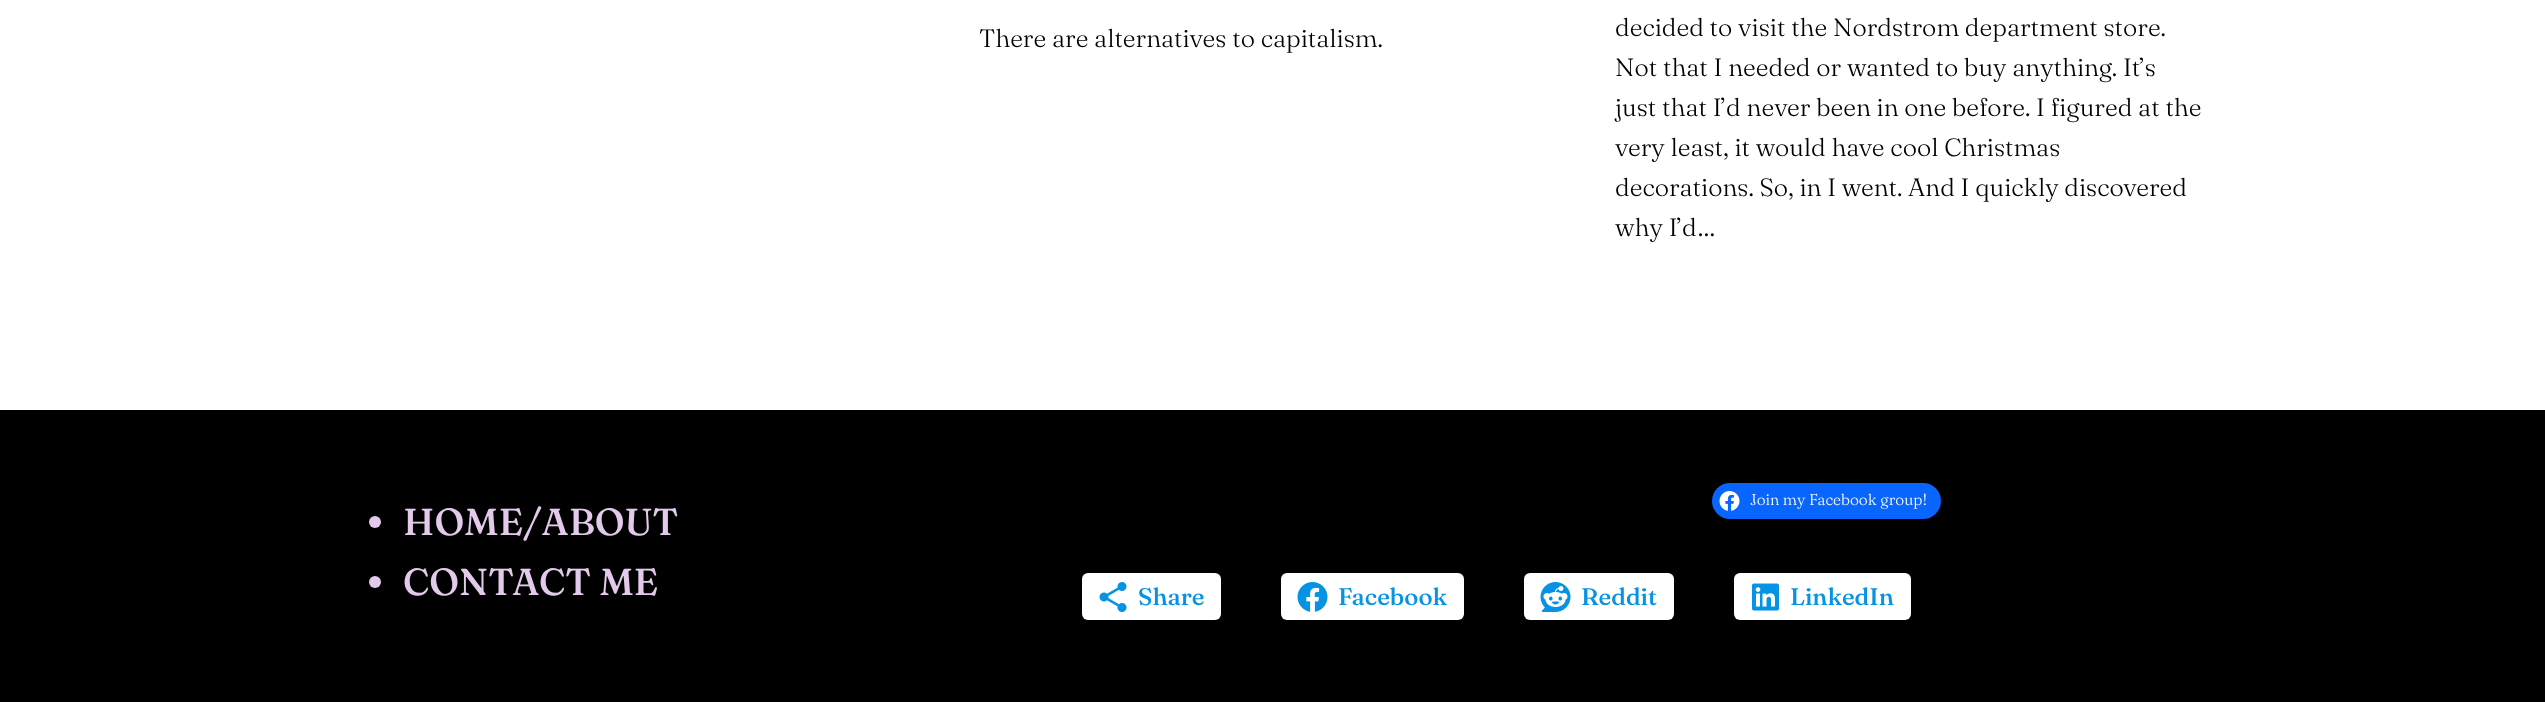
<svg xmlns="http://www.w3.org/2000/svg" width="2545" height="702">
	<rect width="100%" height="100%" fill="#FFFFFF" />
	<g font-family="Fraunces" font-size="25" font-weight="300" fill="#000000">
		<text x="979" y="47">There are alternatives to capitalism.</text>
		<text x="1615" y="36">decided to visit the Nordstrom department store.</text>
		<text x="1615" y="76">Not that I needed or wanted to buy anything. It’s</text>
		<text x="1615" y="116">just that I’d never been in one before. I figured at the</text>
		<text x="1615" y="156">very least, it would have cool Christmas</text>
		<text x="1615" y="196">decorations. So, in I went. And I quickly discovered</text>
		<text x="1615" y="236">why I’d…</text>
	</g>
	<rect x="0" y="410" width="2545" height="292" fill="#000000" />
	<circle cx="375" cy="522" r="6" fill="#E3CAEA" />
	<text x="403" y="535" font-family="Fraunces" font-size="37.5" font-weight="500" fill="#E3CAEA">HOME/ABOUT</text>
	<circle cx="375" cy="582" r="6" fill="#E3CAEA" />
	<text x="403" y="595" font-family="Fraunces" font-size="37.5" font-weight="500" fill="#E3CAEA">CONTACT ME</text>
	<rect x="1712" y="483" width="229" height="36" rx="18" fill="#0866FF" />
	<image x="1719" y="491" width="21" height="20" href="assets/img1.png" />
	<text x="1750" y="505" font-family="Fraunces" font-size="15.6" font-weight="300" fill="#FFFFFF">Join my Facebook group!</text>
	<rect x="1082" y="573" width="139" height="47" rx="6" fill="#FFFFFF" />
	<image x="1099" y="582" width="28" height="30" href="assets/img2.png" />
	<text x="1138" y="605" font-family="Fraunces" font-size="24" font-weight="500" fill="#0693E3">Share</text>
	<rect x="1281" y="573" width="183" height="47" rx="6" fill="#FFFFFF" />
	<image x="1297" y="582" width="31" height="30" href="assets/img3.png" />
	<text x="1338" y="605" font-family="Fraunces" font-size="24" font-weight="500" fill="#0693E3">Facebook</text>
	<rect x="1524" y="573" width="150" height="47" rx="6" fill="#FFFFFF" />
	<image x="1540" y="582" width="31" height="30" href="assets/img4.png" />
	<text x="1581" y="605" font-family="Fraunces" font-size="24" font-weight="500" fill="#0693E3">Reddit</text>
	<rect x="1734" y="573" width="177" height="47" rx="6" fill="#FFFFFF" />
	<image x="1752" y="583" width="27" height="28" href="assets/img5.png" />
	<text x="1790" y="605" font-family="Fraunces" font-size="24" font-weight="500" fill="#0693E3">LinkedIn</text>
</svg>
